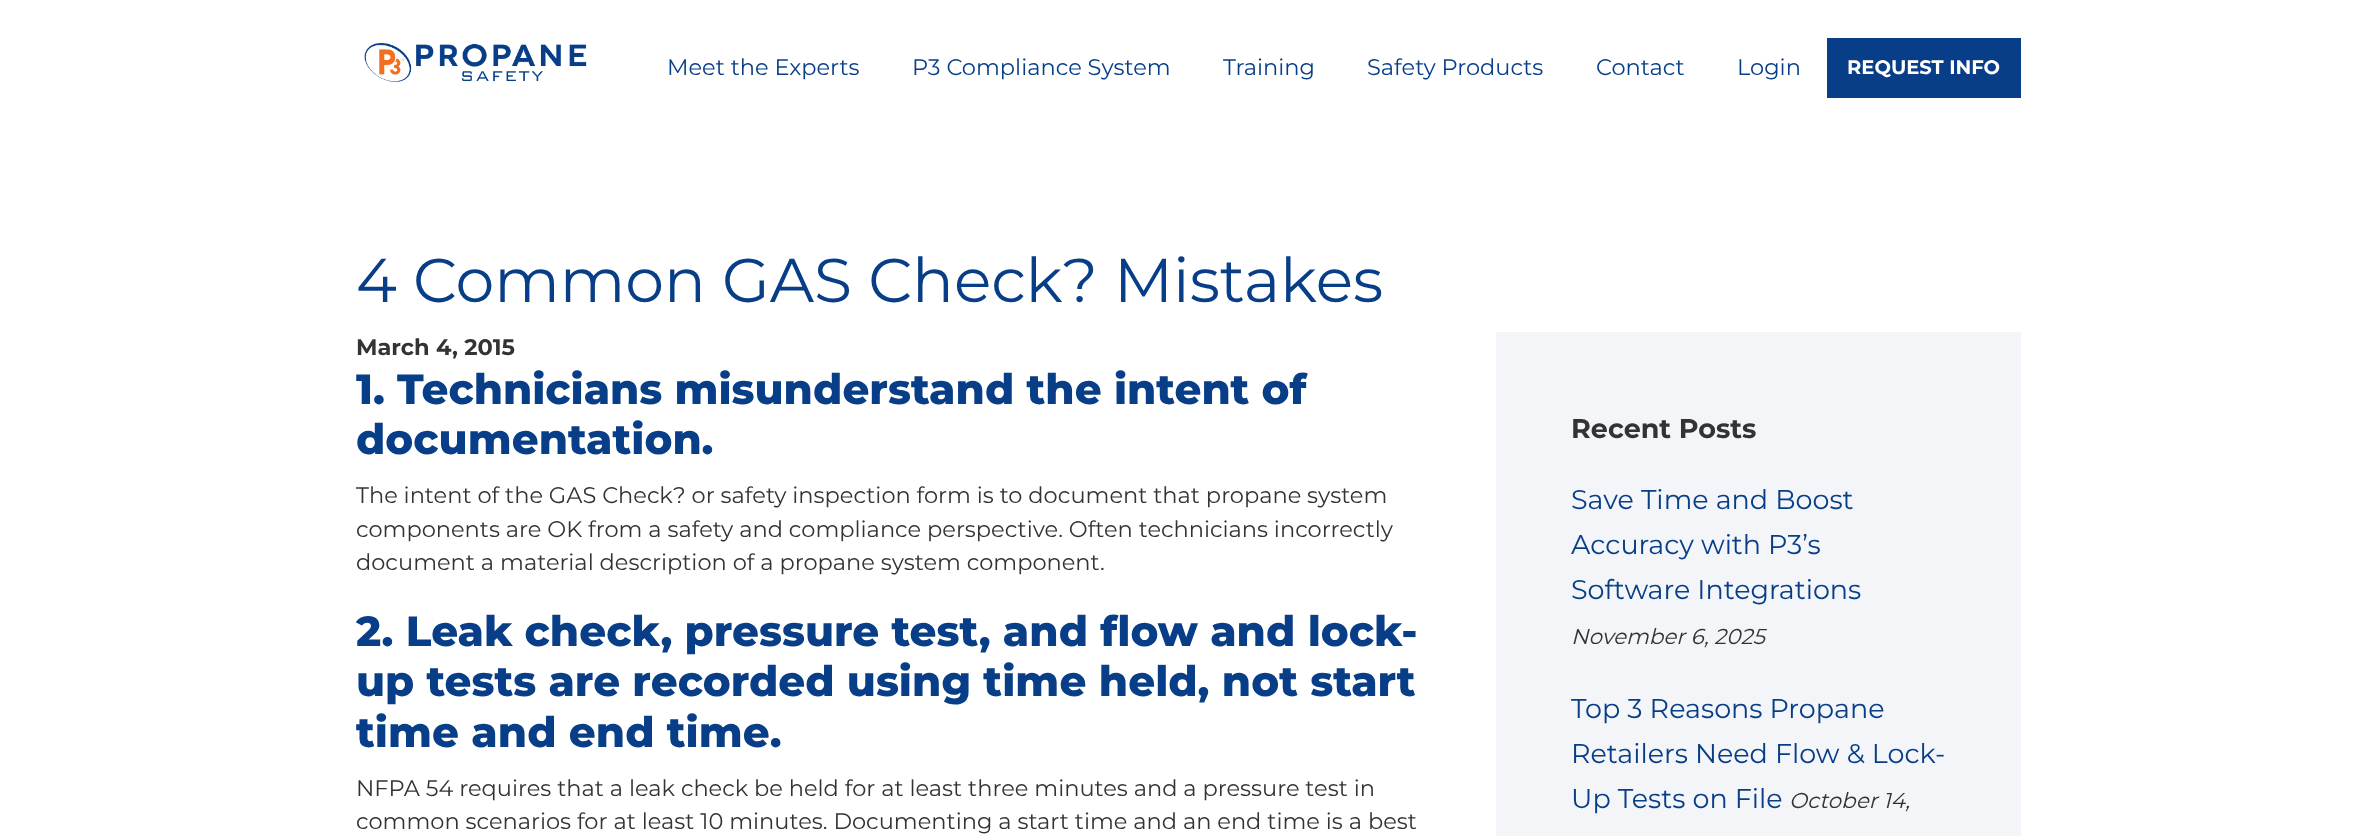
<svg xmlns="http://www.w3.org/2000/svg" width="2375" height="836">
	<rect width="100%" height="100%" fill="#FFFFFF" />
	<image x="364" y="43" width="223" height="39" href="assets/img1.png" />
	<g font-family="Montserrat" font-size="22.5" fill="#083E87">
		<text x="667" y="75">Meet the Experts</text>
		<text x="912" y="75">P3 Compliance System</text>
		<text x="1223" y="75">Training</text>
		<text x="1367" y="75">Safety Products</text>
		<text x="1596" y="75">Contact</text>
		<text x="1737" y="75">Login</text>
	</g>
	<rect x="1827" y="38" width="194" height="60" fill="#083E87" />
	<text x="1847" y="74" font-family="Montserrat" font-size="19.5" font-weight="700" fill="#FFFFFF">REQUEST INFO</text>
	<text x="356" y="302" font-family="Montserrat" font-size="61.8" fill="#083E87">4 Common GAS Check? Mistakes</text>
	<text x="356" y="355" font-family="Montserrat" font-size="22.5" font-weight="700" fill="#333333">March 4, 2015</text>
	<g font-family="Montserrat" font-size="42" font-weight="800" fill="#083E87">
		<text x="356" y="404">1. Technicians misunderstand the intent of</text>
		<text x="356" y="454">documentation.</text>
	</g>
	<g font-family="Montserrat" font-size="22.5" fill="#333333">
		<text x="356" y="503">The intent of the GAS Check? or safety inspection form is to document that propane system</text>
		<text x="356" y="537">components are OK from a safety and compliance perspective. Often technicians incorrectly</text>
		<text x="356" y="570">document a material description of a propane system component.</text>
	</g>
	<g font-family="Montserrat" font-size="42" font-weight="800" fill="#083E87">
		<text x="356" y="646">2. Leak check, pressure test, and flow and lock-</text>
		<text x="356" y="696">up tests are recorded using time held, not start</text>
		<text x="356" y="747">time and end time.</text>
	</g>
	<g font-family="Montserrat" font-size="22.5" fill="#333333">
		<text x="356" y="796">NFPA 54 requires that a leak check be held for at least three minutes and a pressure test in</text>
		<text x="356" y="829">common scenarios for at least 10 minutes. Documenting a start time and an end time is a best</text>
	</g>
	<rect x="1496" y="332" width="525" height="504" fill="#F3F5F9" />
	<text x="1571" y="438" font-family="Montserrat" font-size="27" font-weight="700" fill="#333333">Recent Posts</text>
	<g font-family="Montserrat" font-size="27" fill="#083E87">
		<text x="1571" y="509">Save Time and Boost</text>
		<text x="1571" y="554">Accuracy with P3’s</text>
		<text x="1571" y="599">Software Integrations</text>
	</g>
	<text x="1571" y="644" font-family="Montserrat" font-size="21.5" font-style="italic" fill="#333333">November 6, 2025</text>
	<g font-family="Montserrat" font-size="27" fill="#083E87">
		<text x="1571" y="718">Top 3 Reasons Propane</text>
		<text x="1571" y="763">Retailers Need Flow &amp; Lock-</text>
		<text x="1571" y="808">Up Tests on File</text>
	</g>
	<text x="1789" y="808" font-family="Montserrat" font-size="21.5" font-style="italic" fill="#333333">October 14,</text>
</svg>
